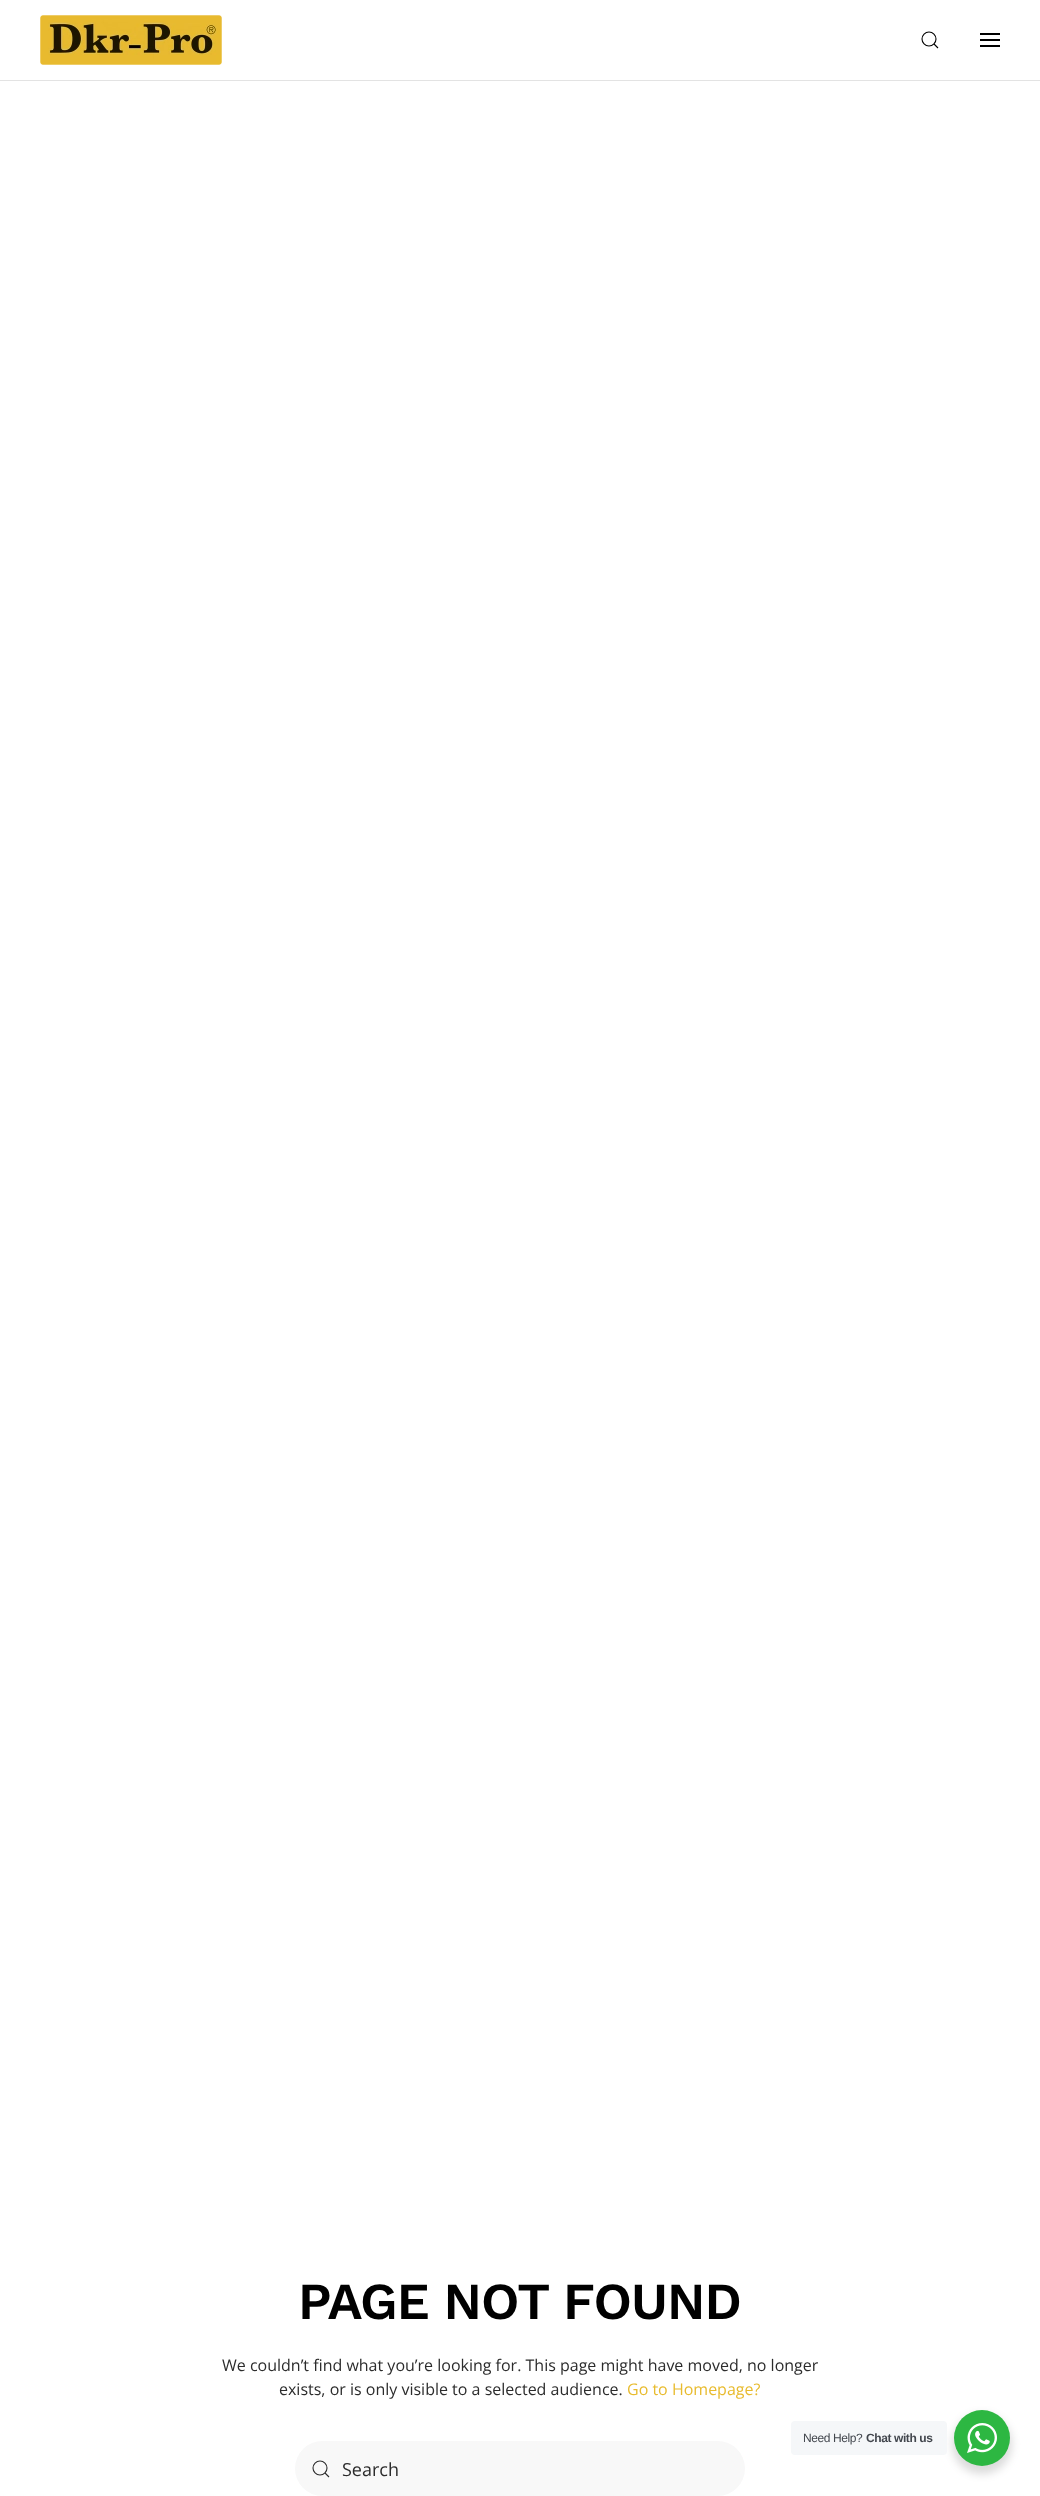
<svg xmlns="http://www.w3.org/2000/svg" width="1040" height="2496">
	<rect width="100%" height="100%" fill="#FFFFFF" />
	<rect x="0" y="80" width="1040" height="1" fill="#E3E3E3" />
	<image x="40" y="15" width="182" height="50" href="assets/img1.png" />
	<circle cx="929" cy="39" r="7" fill="none" stroke="#000000" stroke-width="1.1" />
	<path d="M934 44L938 48Z" fill="none" stroke="#000000" stroke-width="1.1" />
	<rect x="980" y="33" width="20" height="2" fill="#000000" />
	<rect x="980" y="39" width="20" height="2" fill="#000000" />
	<rect x="980" y="45" width="20" height="2" fill="#000000" />
	<text x="298" y="2319" font-family="Work Sans" font-size="52" font-weight="600" letter-spacing="-1" fill="#000000">PAGE NOT FOUND</text>
	<g font-family="Open Sans" font-size="16" fill="#2C2C2C">
		<text x="222" y="2371">We couldn’t find what you’re looking for. This page might have moved, no longer</text>
		<text x="279" y="2395">exists, or is only visible to a selected audience.</text>
	</g>
	<text x="627" y="2395" font-family="Open Sans" font-size="16" fill="#E8BB2E">Go to Homepage?</text>
	<rect x="295" y="2441" width="450" height="55" rx="27.5" fill="#F8F8F8" />
	<circle cx="320" cy="2468" r="7" fill="none" stroke="#2C2C2C" stroke-width="1.1" />
	<path d="M325 2473L329 2477Z" fill="none" stroke="#2C2C2C" stroke-width="1.1" />
	<text x="342" y="2476" font-family="Open Sans" font-size="18" fill="#2C2C2C">Search</text>
	<rect x="952" y="2414" width="60" height="60" rx="30" fill="#000000" fill-opacity="0.14" filter="blur(4px)" />
	<rect x="791" y="2421" width="156" height="34" rx="4" fill="#F5F7F9" />
	<text x="803" y="2442" font-family="Liberation Sans" font-size="12" letter-spacing="-0.4" fill="#43474E">Need Help?</text>
	<text x="866" y="2442" font-family="Liberation Sans" font-size="12" font-weight="700" letter-spacing="-0.4" fill="#43474E">Chat with us</text>
	<circle cx="982" cy="2438" r="28" fill="#2DB742" />
	<image x="967" y="2423" width="30" height="30" href="assets/img2.png" />
</svg>
